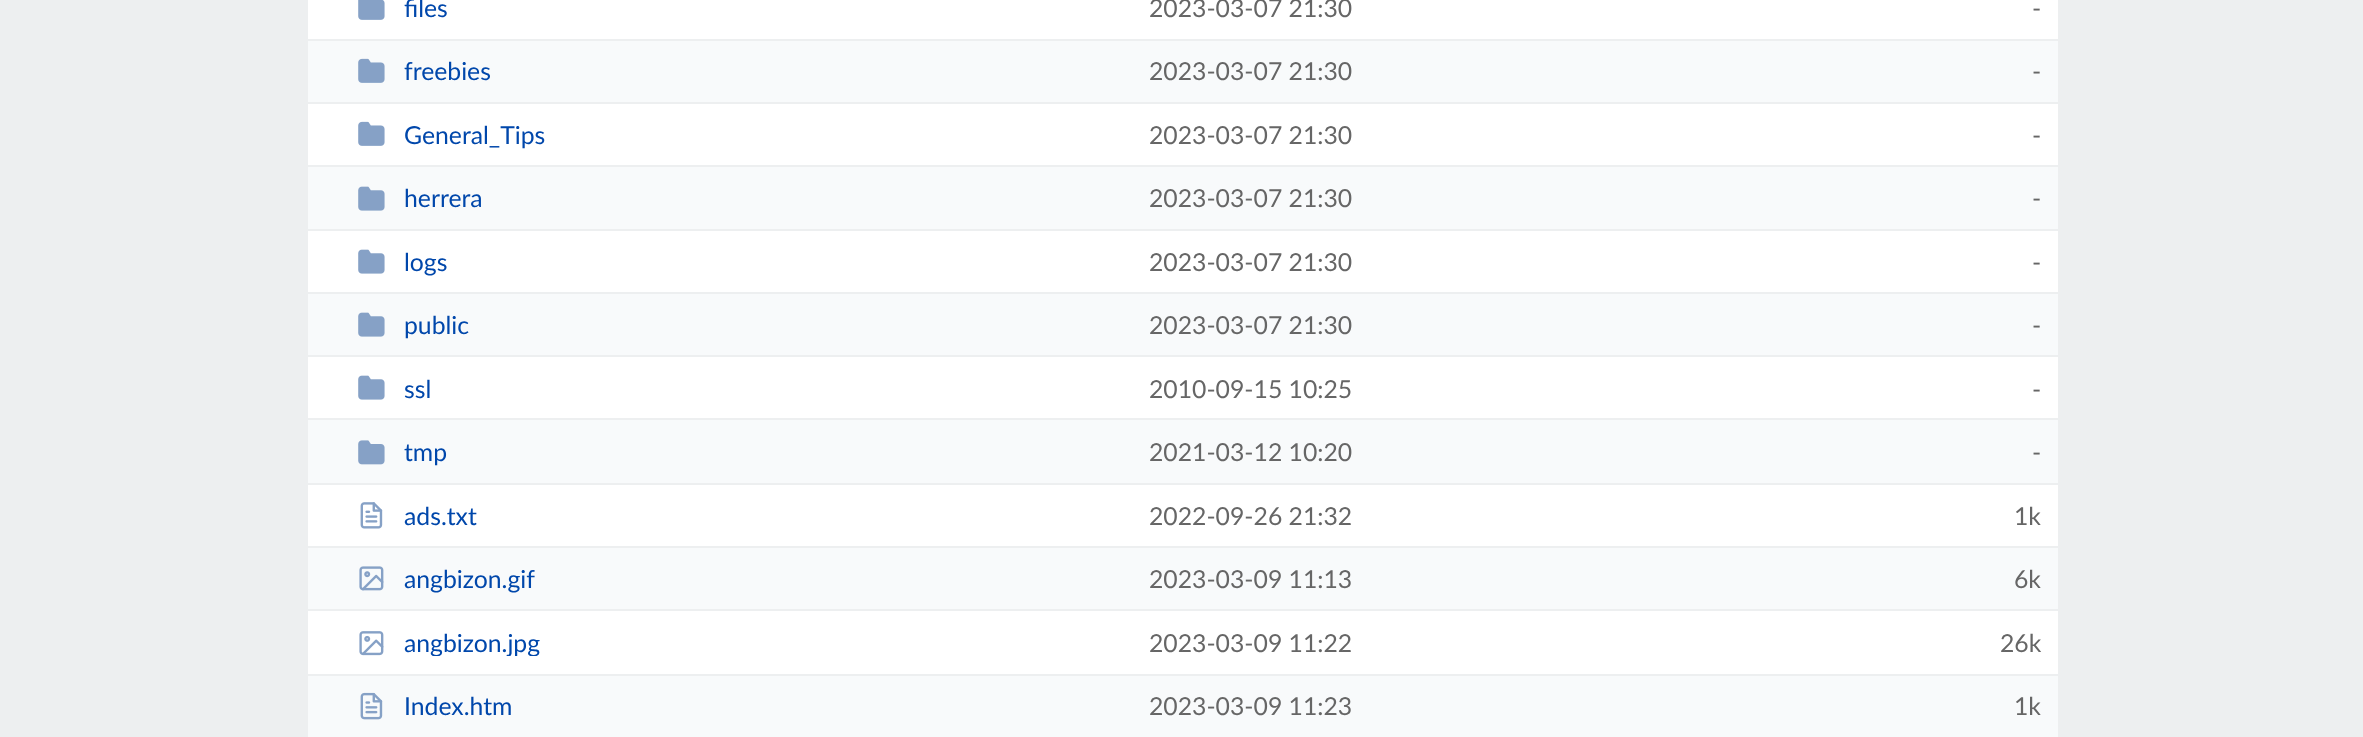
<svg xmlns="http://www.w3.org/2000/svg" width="2363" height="737">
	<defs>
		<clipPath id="clip1"><rect x="357" y="627" width="760" height="29" /></clipPath>
	</defs>
	<rect width="100%" height="100%" fill="#EDEFF0" />
	<rect x="308" y="0" width="1750" height="674" fill="#FFFFFF" />
	<image x="358" y="0" width="27" height="20" href="assets/img1.png" />
	<text x="404" y="17" font-family="Lato" font-size="24.75" fill="#0047AB">files</text>
	<g font-family="Lato" font-size="24.75" fill="#666666">
		<text x="1149" y="17">2023-03-07 21:30</text>
		<text x="2032" y="17">-</text>
	</g>
	<rect x="308" y="41" width="1750" height="61" fill="#F8FAFB" />
	<rect x="308" y="39" width="1750" height="2" fill="#EDEFF0" />
	<rect x="308" y="102" width="1750" height="2" fill="#EDEFF0" />
	<image x="358" y="58" width="27" height="25" href="assets/img2.png" />
	<text x="404" y="80" font-family="Lato" font-size="24.75" fill="#0047AB">freebies</text>
	<g font-family="Lato" font-size="24.75" fill="#666666">
		<text x="1149" y="80">2023-03-07 21:30</text>
		<text x="2032" y="80">-</text>
	</g>
	<image x="358" y="121" width="27" height="25" href="assets/img3.png" />
	<text x="404" y="144" font-family="Lato" font-size="24.75" fill="#0047AB">General_Tips</text>
	<g font-family="Lato" font-size="24.75" fill="#666666">
		<text x="1149" y="144">2023-03-07 21:30</text>
		<text x="2032" y="144">-</text>
	</g>
	<rect x="308" y="167" width="1750" height="62" fill="#F8FAFB" />
	<rect x="308" y="165" width="1750" height="2" fill="#EDEFF0" />
	<rect x="308" y="229" width="1750" height="2" fill="#EDEFF0" />
	<image x="358" y="186" width="27" height="25" href="assets/img4.png" />
	<text x="404" y="207" font-family="Lato" font-size="24.75" fill="#0047AB">herrera</text>
	<g font-family="Lato" font-size="24.75" fill="#666666">
		<text x="1149" y="207">2023-03-07 21:30</text>
		<text x="2032" y="207">-</text>
	</g>
	<image x="358" y="249" width="27" height="25" href="assets/img5.png" />
	<text x="404" y="271" font-family="Lato" font-size="24.75" fill="#0047AB">logs</text>
	<g font-family="Lato" font-size="24.75" fill="#666666">
		<text x="1149" y="271">2023-03-07 21:30</text>
		<text x="2032" y="271">-</text>
	</g>
	<rect x="308" y="294" width="1750" height="61" fill="#F8FAFB" />
	<rect x="308" y="292" width="1750" height="2" fill="#EDEFF0" />
	<rect x="308" y="355" width="1750" height="2" fill="#EDEFF0" />
	<image x="358" y="312" width="27" height="25" href="assets/img4.png" />
	<text x="404" y="334" font-family="Lato" font-size="24.75" fill="#0047AB">public</text>
	<g font-family="Lato" font-size="24.75" fill="#666666">
		<text x="1149" y="334">2023-03-07 21:30</text>
		<text x="2032" y="334">-</text>
	</g>
	<image x="358" y="375" width="27" height="25" href="assets/img5.png" />
	<text x="404" y="398" font-family="Lato" font-size="24.75" fill="#0047AB">ssl</text>
	<g font-family="Lato" font-size="24.75" fill="#666666">
		<text x="1149" y="398">2010-09-15 10:25</text>
		<text x="2032" y="398">-</text>
	</g>
	<rect x="308" y="420" width="1750" height="63" fill="#F8FAFB" />
	<rect x="308" y="418" width="1750" height="2" fill="#EDEFF0" />
	<rect x="308" y="483" width="1750" height="2" fill="#EDEFF0" />
	<image x="358" y="440" width="27" height="25" href="assets/img6.png" />
	<text x="404" y="461" font-family="Lato" font-size="24.75" fill="#0047AB">tmp</text>
	<g font-family="Lato" font-size="24.75" fill="#666666">
		<text x="1149" y="461">2021-03-12 10:20</text>
		<text x="2032" y="461">-</text>
	</g>
	<image x="360" y="502" width="23" height="27" href="assets/img7.png" />
	<text x="404" y="525" font-family="Lato" font-size="24.75" fill="#0047AB">ads.txt</text>
	<g font-family="Lato" font-size="24.75" fill="#666666">
		<text x="1149" y="525">2022-09-26 21:32</text>
		<text x="2014" y="525">1k</text>
	</g>
	<rect x="308" y="548" width="1750" height="61" fill="#F8FAFB" />
	<rect x="308" y="546" width="1750" height="2" fill="#EDEFF0" />
	<rect x="308" y="609" width="1750" height="2" fill="#EDEFF0" />
	<image x="359" y="566" width="25" height="25" href="assets/img8.png" />
	<text x="404" y="588" font-family="Lato" font-size="24.75" fill="#0047AB">angbizon.gif</text>
	<g font-family="Lato" font-size="24.75" fill="#666666">
		<text x="1149" y="588">2023-03-09 11:13</text>
		<text x="2014" y="588">6k</text>
	</g>
	<image x="359" y="631" width="25" height="25" href="assets/img9.png" />
	<g clip-path="url(#clip1)">
		<text x="404" y="652" font-family="Lato" font-size="24.75" fill="#0047AB">angbizon.jpg</text>
	</g>
	<g font-family="Lato" font-size="24.75" fill="#666666">
		<text x="1149" y="652">2023-03-09 11:22</text>
		<text x="2000" y="652">26k</text>
	</g>
	<rect x="308" y="676" width="1750" height="61" fill="#F8FAFB" />
	<image x="360" y="692" width="23" height="28" href="assets/img10.png" />
	<text x="404" y="715" font-family="Lato" font-size="24.75" fill="#0047AB">Index.htm</text>
	<g font-family="Lato" font-size="24.75" fill="#666666">
		<text x="1149" y="715">2023-03-09 11:23</text>
		<text x="2014" y="715">1k</text>
	</g>
</svg>
